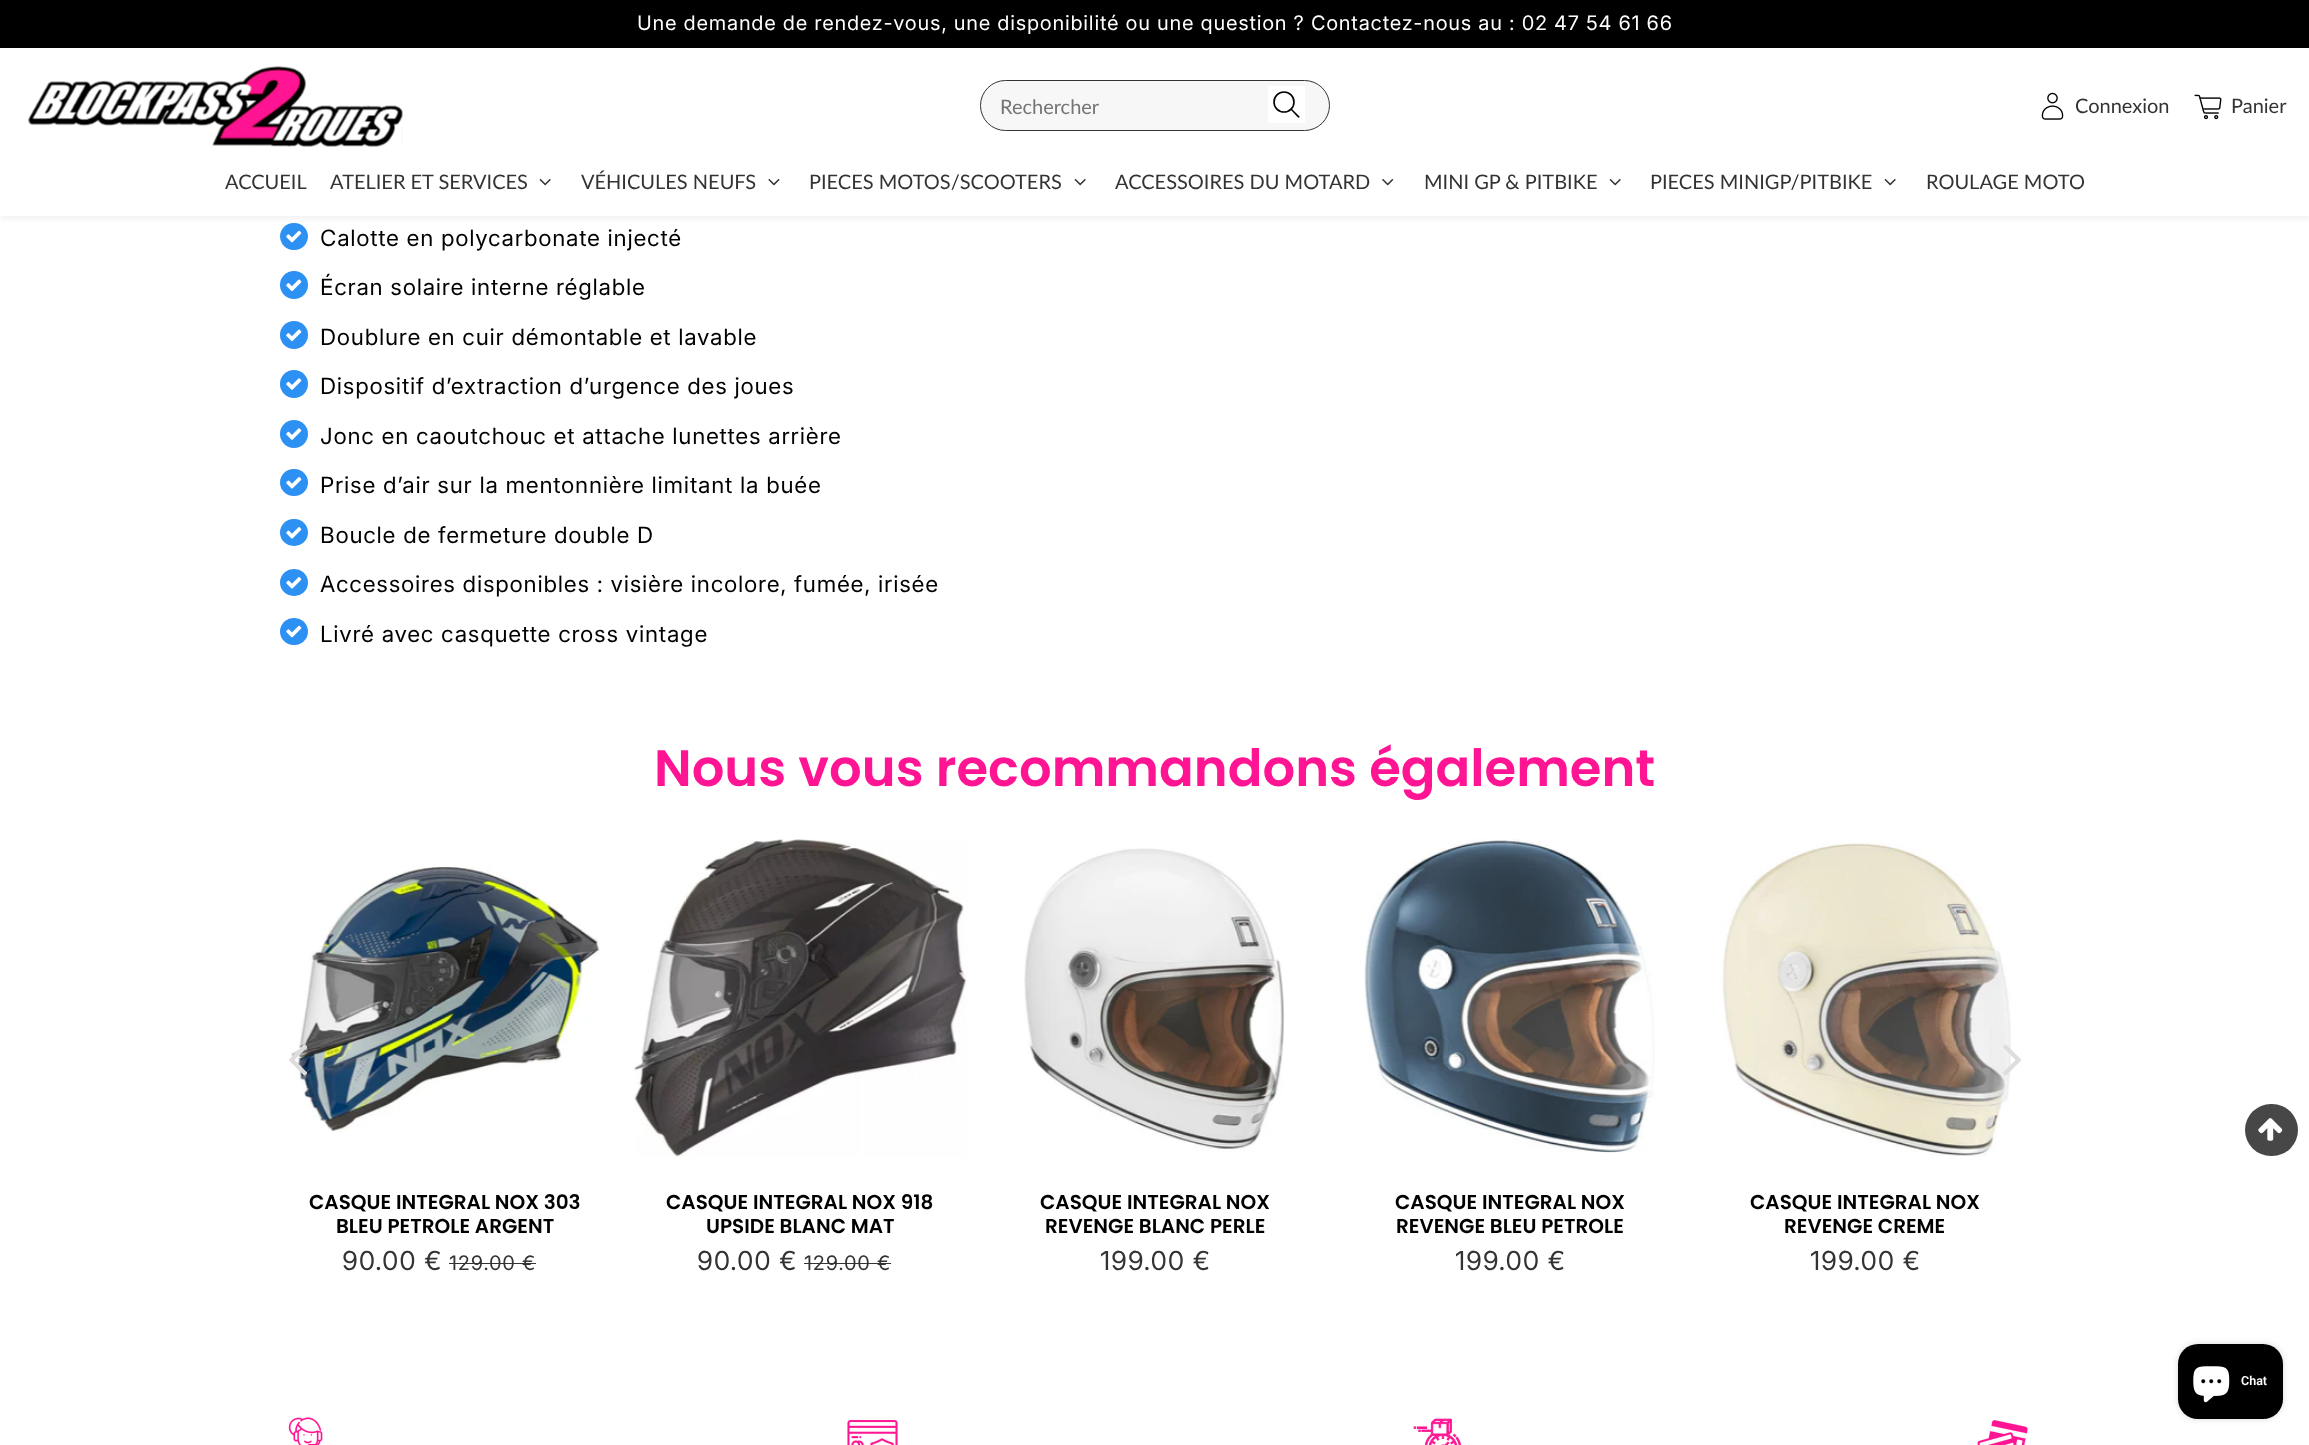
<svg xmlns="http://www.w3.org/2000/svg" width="2309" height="1445">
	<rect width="100%" height="100%" fill="#FFFFFF" />
	<rect x="280" y="223" width="28" height="27" rx="13.5" fill="#2D90F3" />
	<rect x="0" y="3" width="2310" height="216" fill="#000000" fill-opacity="0.05" filter="blur(2.5px)" />
	<rect x="0" y="48" width="2309" height="168" fill="#FFFFFF" />
	<rect x="0" y="0" width="2309" height="48" fill="#000000" />
	<text x="637" y="30" font-family="'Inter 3'" font-size="20" letter-spacing="0.75" fill="#FFFFFF">Une demande de rendez-vous, une disponibilité ou une question ? Contactez-nous au : 02 47 54 61 66</text>
	<image x="27" y="66" width="376" height="81" href="assets/img1.png" />
	<rect x="980.5" y="80.5" width="349" height="50" rx="25" fill="#F7F7F7" stroke="#333333" />
	<text x="1000" y="114" font-family="Lato" font-size="20" fill="#757575">Rechercher</text>
	<rect x="1268" y="86" width="37" height="37" fill="#FFFFFF" />
	<circle cx="1284" cy="102" r="10" fill="none" stroke="#000000" stroke-width="1.6" />
	<path d="M1298 117.5C1299 118 1300 117 1299.5 116.5ZM1299.5 116.5L1291.5 108.5L1290.5 109.5L1298 117.5Z" fill="#000000" />
	<image x="2041" y="92" width="23" height="28" href="assets/img2.png" />
	<text x="2075" y="113" font-family="Lato" font-size="20" fill="#333333">Connexion</text>
	<image x="2194" y="94" width="28" height="26" href="assets/img3.png" />
	<g font-family="Lato" font-size="20" fill="#333333">
		<text x="2231" y="113">Panier</text>
		<text x="225" y="189">ACCUEIL</text>
		<text x="330" y="189">ATELIER ET SERVICES</text>
	</g>
	<image x="539" y="178" width="12" height="8" href="assets/img4.png" />
	<text x="581" y="189" font-family="Lato" font-size="20" fill="#333333">VÉHICULES NEUFS</text>
	<image x="768" y="178" width="12" height="8" href="assets/img5.png" />
	<text x="809" y="189" font-family="Lato" font-size="20" fill="#333333">PIECES MOTOS/SCOOTERS</text>
	<image x="1074" y="178" width="12" height="8" href="assets/img4.png" />
	<text x="1115" y="189" font-family="Lato" font-size="20" fill="#333333">ACCESSOIRES DU MOTARD</text>
	<image x="1382" y="178" width="12" height="8" href="assets/img6.png" />
	<text x="1424" y="189" font-family="Lato" font-size="20" fill="#333333">MINI GP &amp; PITBIKE</text>
	<image x="1609" y="178" width="12" height="8" href="assets/img4.png" />
	<text x="1650" y="189" font-family="Lato" font-size="20" fill="#333333">PIECES MINIGP/PITBIKE</text>
	<image x="1884" y="178" width="12" height="8" href="assets/img4.png" />
	<text x="1926" y="189" font-family="Lato" font-size="20" fill="#333333">ROULAGE MOTO</text>
	<image x="286" y="230" width="16" height="13" href="assets/img7.png" />
	<text x="320" y="246" font-family="Inter" font-size="22.5" letter-spacing="0.75" fill="#000000">Calotte en polycarbonate injecté</text>
	<circle cx="294" cy="285" r="14" fill="#2D90F3" />
	<image x="286" y="279" width="16" height="13" href="assets/img8.png" />
	<text x="320" y="295" font-family="Inter" font-size="22.5" letter-spacing="0.75" fill="#000000">Écran solaire interne réglable</text>
	<circle cx="294" cy="335" r="14" fill="#2D90F3" />
	<image x="286" y="329" width="16" height="13" href="assets/img8.png" />
	<text x="320" y="345" font-family="Inter" font-size="22.5" letter-spacing="0.75" fill="#000000">Doublure en cuir démontable et lavable</text>
	<circle cx="294" cy="384" r="14" fill="#2D90F3" />
	<image x="286" y="378" width="16" height="12" href="assets/img9.png" />
	<text x="320" y="394" font-family="Inter" font-size="22.5" letter-spacing="0.75" fill="#000000">Dispositif d’extraction d’urgence des joues</text>
	<circle cx="294" cy="434" r="14" fill="#2D90F3" />
	<image x="286" y="428" width="16" height="12" href="assets/img9.png" />
	<text x="320" y="444" font-family="Inter" font-size="22.5" letter-spacing="0.75" fill="#000000">Jonc en caoutchouc et attache lunettes arrière</text>
	<rect x="280" y="469" width="28" height="27" rx="13.5" fill="#2D90F3" />
	<image x="286" y="477" width="16" height="12" href="assets/img10.png" />
	<text x="320" y="493" font-family="Inter" font-size="22.5" letter-spacing="0.75" fill="#000000">Prise d’air sur la mentonnière limitant la buée</text>
	<rect x="280" y="519" width="28" height="27" rx="13.5" fill="#2D90F3" />
	<image x="286" y="527" width="16" height="12" href="assets/img10.png" />
	<text x="320" y="543" font-family="Inter" font-size="22.5" letter-spacing="0.75" fill="#000000">Boucle de fermeture double D</text>
	<rect x="280" y="569" width="28" height="27" rx="13.5" fill="#2D90F3" />
	<image x="286" y="577" width="16" height="12" href="assets/img10.png" />
	<text x="320" y="592" font-family="Inter" font-size="22.5" letter-spacing="0.75" fill="#000000">Accessoires disponibles : visière incolore, fumée, irisée</text>
	<rect x="280" y="618" width="28" height="27" rx="13.5" fill="#2D90F3" />
	<image x="286" y="625" width="16" height="13" href="assets/img7.png" />
	<text x="320" y="642" font-family="Inter" font-size="22.5" letter-spacing="0.75" fill="#000000">Livré avec casquette cross vintage</text>
	<text x="654" y="786" font-family="Poppins" font-size="51.25" font-weight="600" fill="#FF1493">Nous vous recommandons également</text>
	<image x="291" y="866" width="309" height="267" href="assets/img13.png" />
	<image x="289" y="1044" width="19" height="32" href="assets/img11.png" />
	<image x="1720" y="843" width="291" height="313" href="assets/img17.png" />
	<image x="2003" y="1044" width="18" height="32" href="assets/img12.png" />
	<g font-family="Poppins" font-size="20" font-weight="600" fill="#000000">
		<text x="309" y="1209">CASQUE INTEGRAL NOX 303</text>
		<text x="336" y="1233">BLEU PETROLE ARGENT</text>
	</g>
	<text x="342" y="1270" font-family="'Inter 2'" font-size="26.25" letter-spacing="0.75" fill="#333333">90.00 €</text>
	<text x="449" y="1270" font-family="'Inter 3'" font-size="20" letter-spacing="0.75" fill="#333333">129.00 €</text>
	<rect x="449" y="1263" width="87" height="1" fill="#333333" />
	<image x="633" y="839" width="334" height="318" href="assets/img14.png" />
	<g font-family="Poppins" font-size="20" font-weight="600" fill="#000000">
		<text x="666" y="1209">CASQUE INTEGRAL NOX 918</text>
		<text x="706" y="1233">UPSIDE BLANC MAT</text>
	</g>
	<text x="697" y="1270" font-family="'Inter 2'" font-size="26.25" letter-spacing="0.75" fill="#333333">90.00 €</text>
	<text x="804" y="1270" font-family="'Inter 3'" font-size="20" letter-spacing="0.75" fill="#333333">129.00 €</text>
	<rect x="804" y="1263" width="87" height="1" fill="#333333" />
	<image x="1024" y="848" width="260" height="304" href="assets/img15.png" />
	<g font-family="Poppins" font-size="20" font-weight="600" fill="#000000">
		<text x="1040" y="1209">CASQUE INTEGRAL NOX</text>
		<text x="1045" y="1233">REVENGE BLANC PERLE</text>
	</g>
	<text x="1100" y="1270" font-family="'Inter 2'" font-size="26.25" letter-spacing="0.75" fill="#333333">199.00 €</text>
	<image x="1364" y="839" width="291" height="314" href="assets/img16.png" />
	<g font-family="Poppins" font-size="20" font-weight="600" fill="#000000">
		<text x="1395" y="1209">CASQUE INTEGRAL NOX</text>
		<text x="1396" y="1233">REVENGE BLEU PETROLE</text>
	</g>
	<text x="1455" y="1270" font-family="'Inter 2'" font-size="26.25" letter-spacing="0.75" fill="#333333">199.00 €</text>
	<g font-family="Poppins" font-size="20" font-weight="600" fill="#000000">
		<text x="1750" y="1209">CASQUE INTEGRAL NOX</text>
		<text x="1784" y="1233">REVENGE CREME</text>
	</g>
	<text x="1810" y="1270" font-family="'Inter 2'" font-size="26.25" letter-spacing="0.75" fill="#333333">199.00 €</text>
	<rect x="2245" y="1104" width="53" height="52" rx="26" fill="#474747" />
	<image x="2258" y="1118" width="25" height="23" href="assets/img18.png" />
	<rect x="2178" y="1344" width="105" height="75" rx="20" fill="#000000" fill-opacity="0.15" filter="blur(3px)" />
	<rect x="2178" y="1344" width="105" height="75" rx="20" fill="#000000" />
	<image x="2193" y="1366" width="37" height="37" href="assets/img19.png" />
	<text x="2241" y="1385" font-family="Roboto" font-size="12.5" font-weight="600" fill="#FFFFFF">Chat</text>
	<image x="288" y="1417" width="35" height="28" href="assets/img20.png" />
	<image x="847" y="1420" width="51" height="25" href="assets/img21.png" />
	<image x="1413" y="1418" width="49" height="27" href="assets/img22.png" />
	<image x="1977" y="1420" width="51" height="25" href="assets/img23.png" />
</svg>
